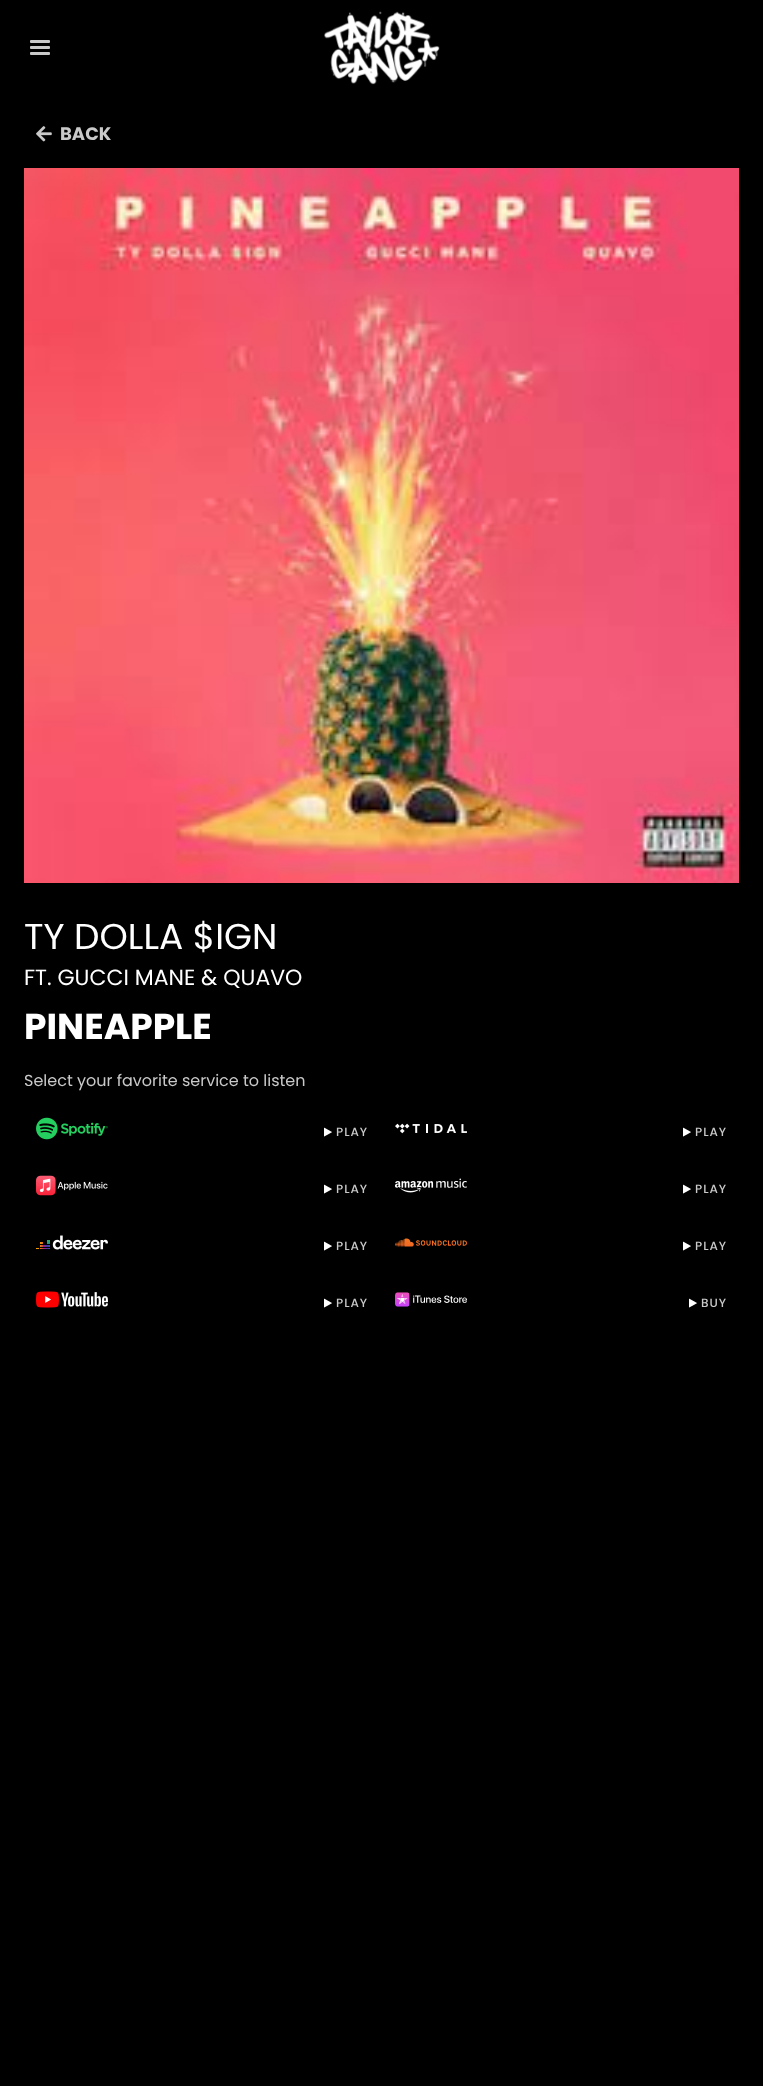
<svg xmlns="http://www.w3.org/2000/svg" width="763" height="2086">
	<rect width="100%" height="100%" fill="#000000" />
	<image x="30" y="40" width="20" height="15" href="assets/img1.png" />
	<image x="324" y="11" width="116" height="74" href="assets/img2.png" />
	<image x="36" y="126" width="16" height="16" href="assets/img3.png" />
	<text x="60" y="140" font-family="Poppins" font-size="18" font-weight="700" fill="#C9C9C9">BACK</text>
	<image x="24" y="168" width="715" height="715" href="assets/img4.png" />
	<text x="24" y="949" font-family="Poppins" font-size="36" fill="#FFFFFF">TY DOLLA $IGN</text>
	<text x="24" y="985" font-family="Poppins" font-size="22" fill="#FFFFFF">FT. GUCCI MANE &amp; QUAVO</text>
	<text x="24" y="1039" font-family="Poppins" font-size="36" font-weight="700" fill="#FFFFFF">PINEAPPLE</text>
	<text x="24" y="1086" font-family="Poppins" font-size="16" fill="#C9C9C9">Select your favorite service to listen</text>
	<image x="36" y="1117" width="72" height="23" href="assets/img5.png" />
	<image x="324" y="1127" width="8" height="10" href="assets/img6.png" />
	<text x="336" y="1136" font-family="Poppins" font-size="12" font-weight="500" letter-spacing="1" fill="#C9C9C9">PLAY</text>
	<image x="395" y="1123" width="72" height="11" href="assets/img7.png" />
	<image x="683" y="1127" width="8" height="10" href="assets/img6.png" />
	<text x="695" y="1136" font-family="Poppins" font-size="12" font-weight="500" letter-spacing="1" fill="#C9C9C9">PLAY</text>
	<image x="36" y="1175" width="72" height="21" href="assets/img8.png" />
	<image x="324" y="1184" width="8" height="10" href="assets/img6.png" />
	<text x="336" y="1193" font-family="Poppins" font-size="12" font-weight="500" letter-spacing="1" fill="#C9C9C9">PLAY</text>
	<image x="395" y="1178" width="72" height="15" href="assets/img9.png" />
	<image x="683" y="1184" width="8" height="10" href="assets/img6.png" />
	<text x="695" y="1193" font-family="Poppins" font-size="12" font-weight="500" letter-spacing="1" fill="#C9C9C9">PLAY</text>
	<image x="36" y="1235" width="72" height="15" href="assets/img10.png" />
	<image x="324" y="1241" width="8" height="10" href="assets/img6.png" />
	<text x="336" y="1250" font-family="Poppins" font-size="12" font-weight="500" letter-spacing="1" fill="#C9C9C9">PLAY</text>
	<image x="395" y="1238" width="72" height="9" href="assets/img11.png" />
	<image x="683" y="1241" width="8" height="10" href="assets/img6.png" />
	<text x="695" y="1250" font-family="Poppins" font-size="12" font-weight="500" letter-spacing="1" fill="#C9C9C9">PLAY</text>
	<image x="36" y="1291" width="72" height="17" href="assets/img12.png" />
	<image x="324" y="1298" width="8" height="10" href="assets/img6.png" />
	<text x="336" y="1307" font-family="Poppins" font-size="12" font-weight="500" letter-spacing="1" fill="#C9C9C9">PLAY</text>
	<image x="395" y="1292" width="72" height="15" href="assets/img13.png" />
	<image x="689" y="1298" width="8" height="10" href="assets/img6.png" />
	<text x="701" y="1307" font-family="Poppins" font-size="12" font-weight="500" letter-spacing="1" fill="#C9C9C9">BUY</text>
</svg>
